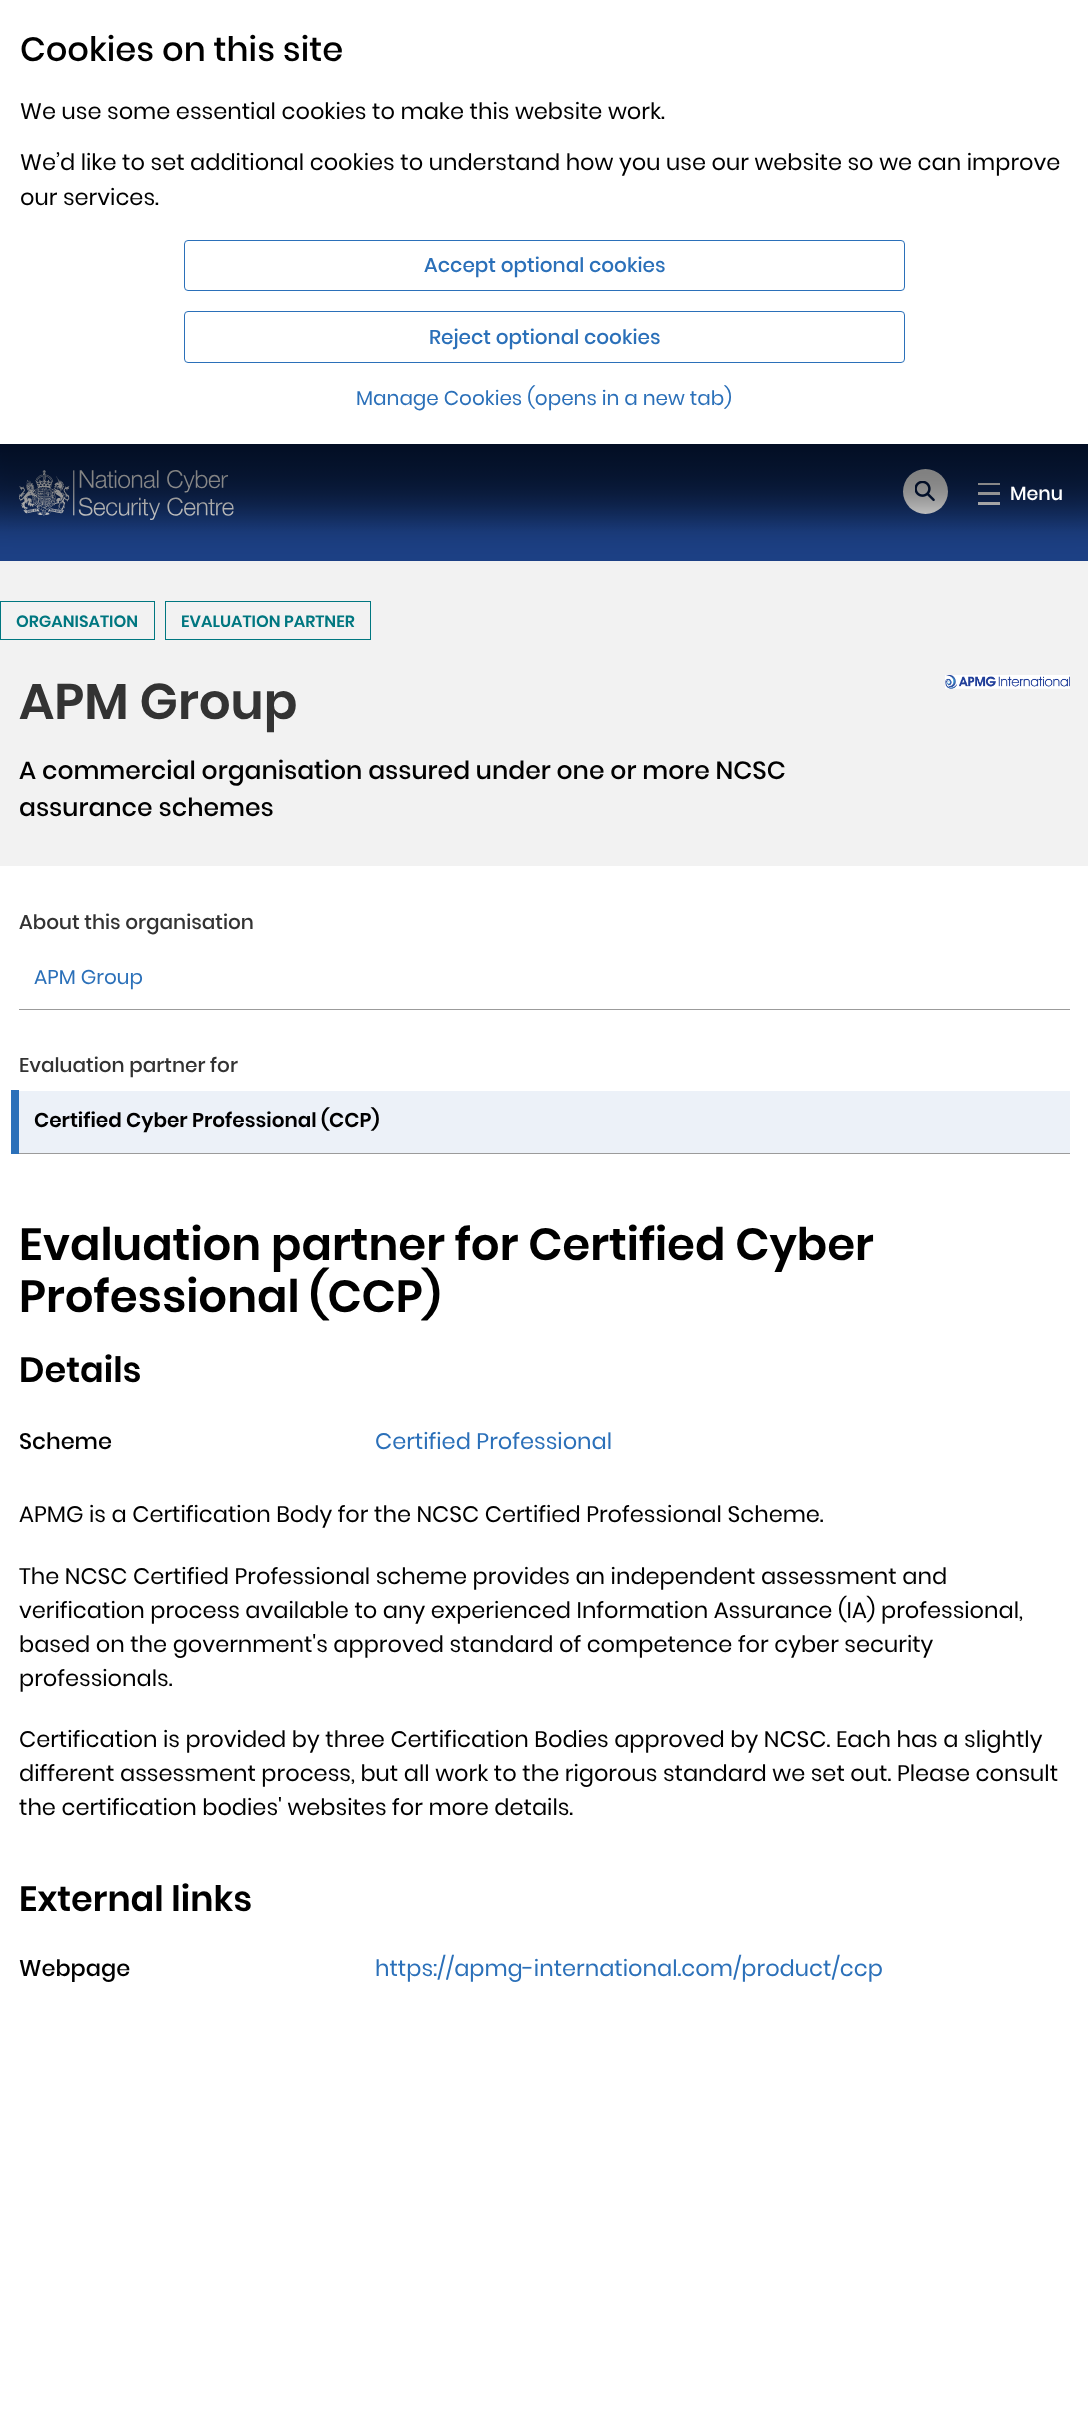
<svg xmlns="http://www.w3.org/2000/svg" width="1088" height="2418">
	<defs>
		<linearGradient id="g1" gradientUnits="userSpaceOnUse" x1="544" y1="444" x2="544" y2="561"><stop offset="0" stop-color="#051C48" /><stop offset="0.75" stop-color="#1D4186" /></linearGradient>
	</defs>
	<rect width="100%" height="100%" fill="#FFFFFF" />
	<rect x="0" y="444" width="1088" height="117" fill="url(#g1)" />
	<image x="19" y="470" width="215" height="50" href="assets/img1.png" />
	<circle cx="925.5" cy="491.5" r="22.5" fill="#FFFFFF" />
	<image x="915" y="481" width="20" height="21" href="assets/img2.png" />
	<rect x="978" y="483" width="22" height="2" fill="#FFFFFF" />
	<rect x="978" y="492" width="22" height="3" fill="#FFFFFF" />
	<rect x="978" y="502" width="22" height="3" fill="#FFFFFF" />
	<rect x="0" y="561" width="1088" height="305" fill="#F2F2F2" />
	<rect x="-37" y="-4" width="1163" height="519" fill="#000000" fill-opacity="0.5" filter="blur(22px)" />
	<rect x="0" y="0" width="1088" height="444" fill="#FFFFFF" />
	<text x="20" y="61" font-family="Poppins" font-size="33.75" font-weight="500" fill="#000000">Cookies on this site</text>
	<g font-family="Poppins" font-size="22.5" fill="#000000">
		<text x="20" y="119">We use some essential cookies to make this website work.</text>
		<text x="20" y="170">We’d like to set additional cookies to understand how you use our website so we can improve</text>
		<text x="20" y="205">our services.</text>
	</g>
	<rect x="184.5" y="240.5" width="720" height="50" rx="3.5" fill="none" stroke="#2B70B9" />
	<text x="424" y="272" font-family="Poppins" font-size="20" font-weight="500" fill="#2B70B9">Accept optional cookies</text>
	<rect x="184.5" y="311.5" width="720" height="51" rx="3.5" fill="none" stroke="#2B70B9" />
	<text x="429" y="344" font-family="Poppins" font-size="20" font-weight="500" fill="#2B70B9">Reject optional cookies</text>
	<text x="356" y="405" font-family="Poppins" font-size="20" fill="#2B70B9">Manage Cookies (opens in a new tab)</text>
	<text x="1010" y="500" font-family="Poppins" font-size="19" font-weight="500" fill="#FFFFFF">Menu</text>
	<rect x="0.5" y="601.5" width="154" height="38" fill="none" stroke="#007780" />
	<text x="16" y="627" font-family="Poppins" font-size="16.25" font-weight="600" fill="#007780">ORGANISATION</text>
	<rect x="165.5" y="601.5" width="205" height="38" fill="none" stroke="#007780" />
	<text x="181" y="627" font-family="Poppins" font-size="16.25" font-weight="600" fill="#007780">EVALUATION PARTNER</text>
	<text x="19" y="719" font-family="Poppins" font-size="50" font-weight="600" fill="#333333">APM Group</text>
	<g font-family="Poppins" font-size="25" font-weight="500" fill="#000000">
		<text x="19" y="779">A commercial organisation assured under one or more NCSC</text>
		<text x="19" y="816">assurance schemes</text>
	</g>
	<image x="945" y="675" width="125" height="14" href="assets/img3.png" />
	<text x="19" y="929" font-family="Poppins" font-size="20" font-weight="500" fill="#333333">About this organisation</text>
	<rect x="19" y="1009" width="1051" height="1" fill="#9B9B9B" />
	<text x="34" y="984" font-family="Poppins" font-size="20" fill="#2B70B9">APM Group</text>
	<text x="19" y="1072" font-family="Poppins" font-size="20" font-weight="500" fill="#333333">Evaluation partner for</text>
	<rect x="19" y="1091" width="1051" height="62" fill="#ECF1F8" />
	<rect x="19" y="1153" width="1051" height="1" fill="#9B9B9B" />
	<rect x="11" y="1090" width="8" height="64" fill="#2B70B9" />
	<text x="34" y="1127" font-family="Poppins" font-size="20" font-weight="600" fill="#000000">Certified Cyber Professional (CCP)</text>
	<g font-family="Poppins" font-size="45" font-weight="600" fill="#000000">
		<text x="19" y="1260">Evaluation partner for Certified Cyber</text>
		<text x="19" y="1312">Professional (CCP)</text>
	</g>
	<text x="19" y="1382" font-family="Poppins" font-size="35" font-weight="600" fill="#000000">Details</text>
	<text x="19" y="1449" font-family="Poppins" font-size="22.5" font-weight="500" fill="#000000">Scheme</text>
	<text x="375" y="1449" font-family="Poppins" font-size="22.5" fill="#2B70B9">Certified Professional</text>
	<g font-family="Poppins" font-size="22.5" fill="#000000">
		<text x="19" y="1522">APMG is a Certification Body for the NCSC Certified Professional Scheme.</text>
		<text x="19" y="1584">The NCSC Certified Professional scheme provides an independent assessment and</text>
		<text x="19" y="1618">verification process available to any experienced Information Assurance (IA) professional,</text>
		<text x="19" y="1652">based on the government's approved standard of competence for cyber security</text>
		<text x="19" y="1686">professionals.</text>
		<text x="19" y="1747">Certification is provided by three Certification Bodies approved by NCSC. Each has a slightly</text>
		<text x="19" y="1781">different assessment process, but all work to the rigorous standard we set out. Please consult</text>
		<text x="19" y="1815">the certification bodies' websites for more details.</text>
	</g>
	<text x="19" y="1911" font-family="Poppins" font-size="35" font-weight="600" fill="#000000">External links</text>
	<text x="19" y="1976" font-family="Poppins" font-size="22.5" font-weight="500" fill="#000000">Webpage</text>
	<text x="375" y="1976" font-family="Poppins" font-size="22.5" fill="#2B70B9">https://apmg-international.com/product/ccp</text>
</svg>
